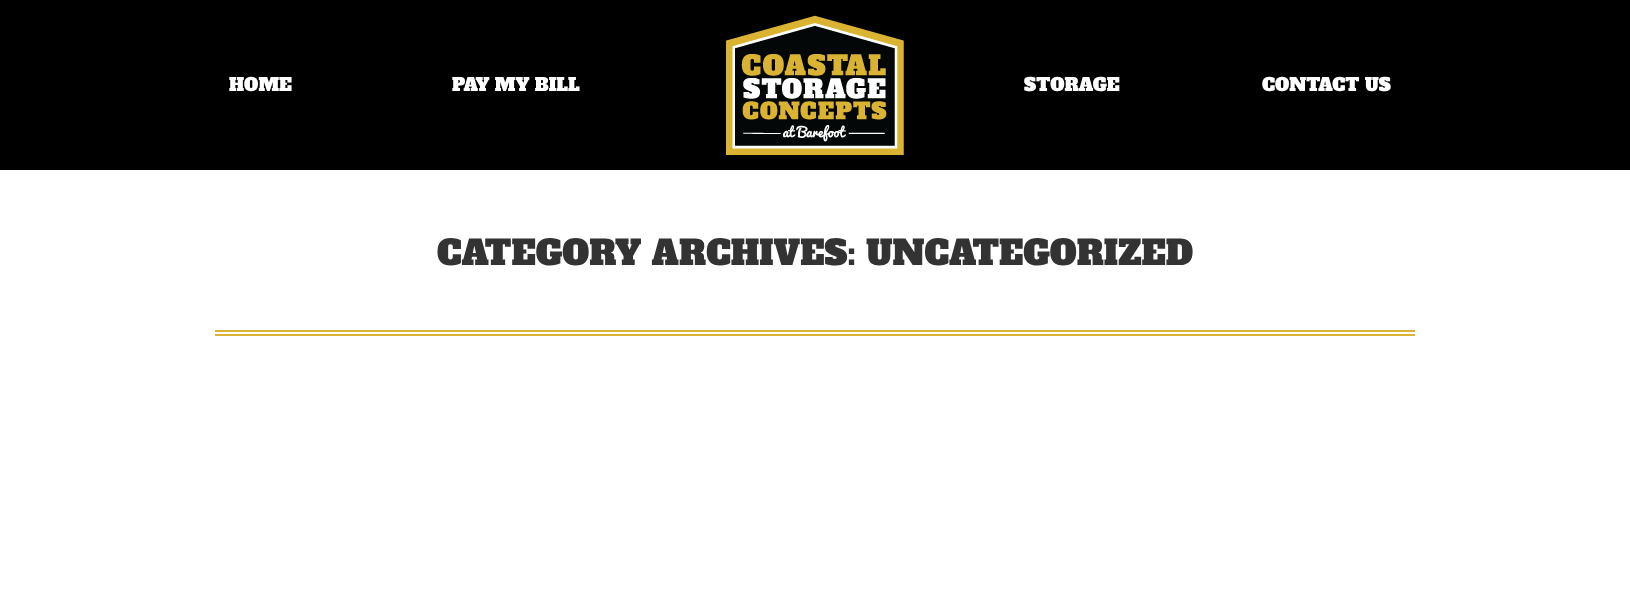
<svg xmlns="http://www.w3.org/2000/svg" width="1630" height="593">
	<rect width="100%" height="100%" fill="#FFFFFF" />
	<rect x="0" y="0" width="1630" height="170" fill="#000000" />
	<g font-family="Alfa Slab One" font-size="18" fill="#FFFFFF">
		<text x="229" y="91">HOME</text>
		<text x="452" y="91">PAY MY BILL</text>
	</g>
	<image x="726" y="15" width="178" height="140" href="assets/img1.png" />
	<g font-family="Alfa Slab One" font-size="18" fill="#FFFFFF">
		<text x="1024" y="91">STORAGE</text>
		<text x="1262" y="91">CONTACT US</text>
	</g>
	<rect x="215" y="330" width="1200" height="2" fill="#DBB332" />
	<rect x="215" y="334" width="1200" height="2" fill="#DBB332" />
	<text x="437" y="265" font-family="Alfa Slab One" font-size="34" fill="#333333">CATEGORY ARCHIVES: UNCATEGORIZED</text>
</svg>
